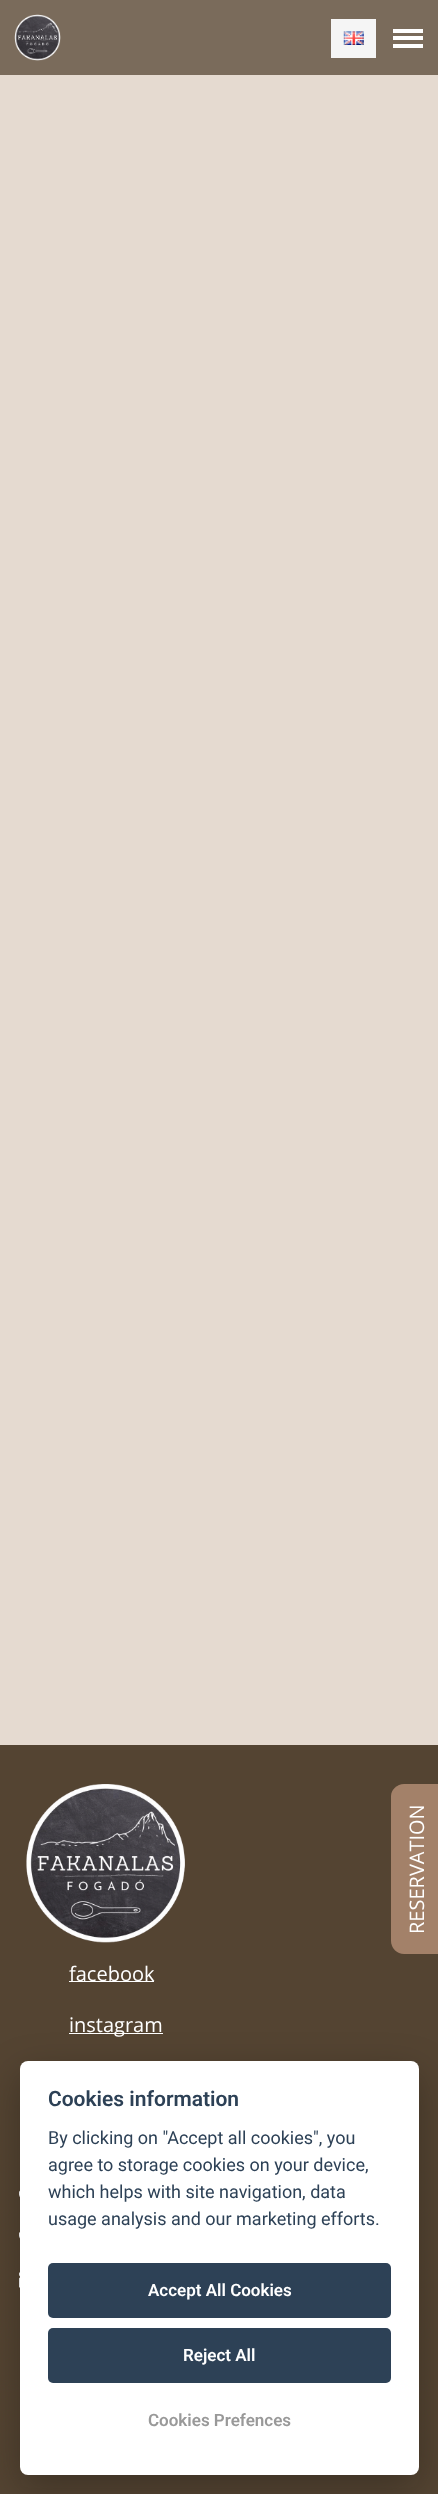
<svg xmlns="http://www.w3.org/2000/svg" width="438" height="2494">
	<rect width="100%" height="100%" fill="#E5DAD0" />
	<rect x="0" y="0" width="438" height="75" fill="#7A6B5B" />
	<image x="14" y="14" width="47" height="47" href="assets/img1.png" />
	<rect x="331" y="19" width="45" height="39" fill="#F5F5F5" />
	<image x="343" y="31" width="21" height="14" href="assets/img2.png" />
	<rect x="393" y="36" width="30" height="4" fill="#FFFFFF" />
	<rect x="393" y="29" width="30" height="4" fill="#FFFFFF" />
	<rect x="393" y="44" width="30" height="4" fill="#FFFFFF" />
	<rect x="0" y="1745" width="438" height="749" fill="#544432" />
	<path d="M391 1941V1796C391 1790 397 1784 404 1784H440V1954H404C397 1954 391 1948 391 1941Z" fill="#A38169" />
	<text x="424" y="1934" transform="rotate(-90 424 1934)" font-family="Open Sans" font-size="20" fill="#FFFFFF">RESERVATION</text>
	<image x="26" y="1784" width="159" height="159" href="assets/img3.png" />
	<rect x="69" y="1981" width="85" height="1" fill="#FFFFFF" />
	<text x="69" y="1981" font-family="Open Sans" font-size="20" fill="#FFFFFF">facebook</text>
	<rect x="69" y="2033" width="94" height="1" fill="#FFFFFF" />
	<text x="69" y="2032" font-family="Open Sans" font-size="20" fill="#FFFFFF">instagram</text>
	<image x="19" y="2190" width="1" height="8" href="assets/img4.png" />
	<image x="19" y="2232" width="1" height="7" href="assets/img5.png" />
	<image x="19" y="2272" width="1" height="16" href="assets/img6.png" />
	<rect x="20" y="2074" width="399" height="414" rx="8" fill="#020203" fill-opacity="0.28" filter="blur(19px)" />
	<rect x="20" y="2061" width="399" height="414" rx="8" fill="#FFFFFF" />
	<text x="48" y="2106" font-family="Roboto" font-size="21" font-weight="600" fill="#2D4156">Cookies information</text>
	<g font-family="Roboto" font-size="18" fill="#2D4156">
		<text x="48" y="2144">By clicking on "Accept all cookies", you</text>
		<text x="48" y="2171">agree to storage cookies on your device,</text>
		<text x="48" y="2198">which helps with site navigation, data</text>
		<text x="48" y="2225">usage analysis and our marketing efforts.</text>
	</g>
	<rect x="48" y="2263" width="343" height="55" rx="5" fill="#2D4156" />
	<text x="148" y="2296" font-family="Roboto" font-size="17" font-weight="600" fill="#FFFFFF">Accept All Cookies</text>
	<rect x="48" y="2328" width="343" height="55" rx="5" fill="#2D4156" />
	<text x="183" y="2361" font-family="Roboto" font-size="17" font-weight="600" fill="#FFFFFF">Reject All</text>
	<text x="148" y="2426" font-family="Roboto" font-size="17" font-weight="600" fill="#999999">Cookies Prefences</text>
</svg>
